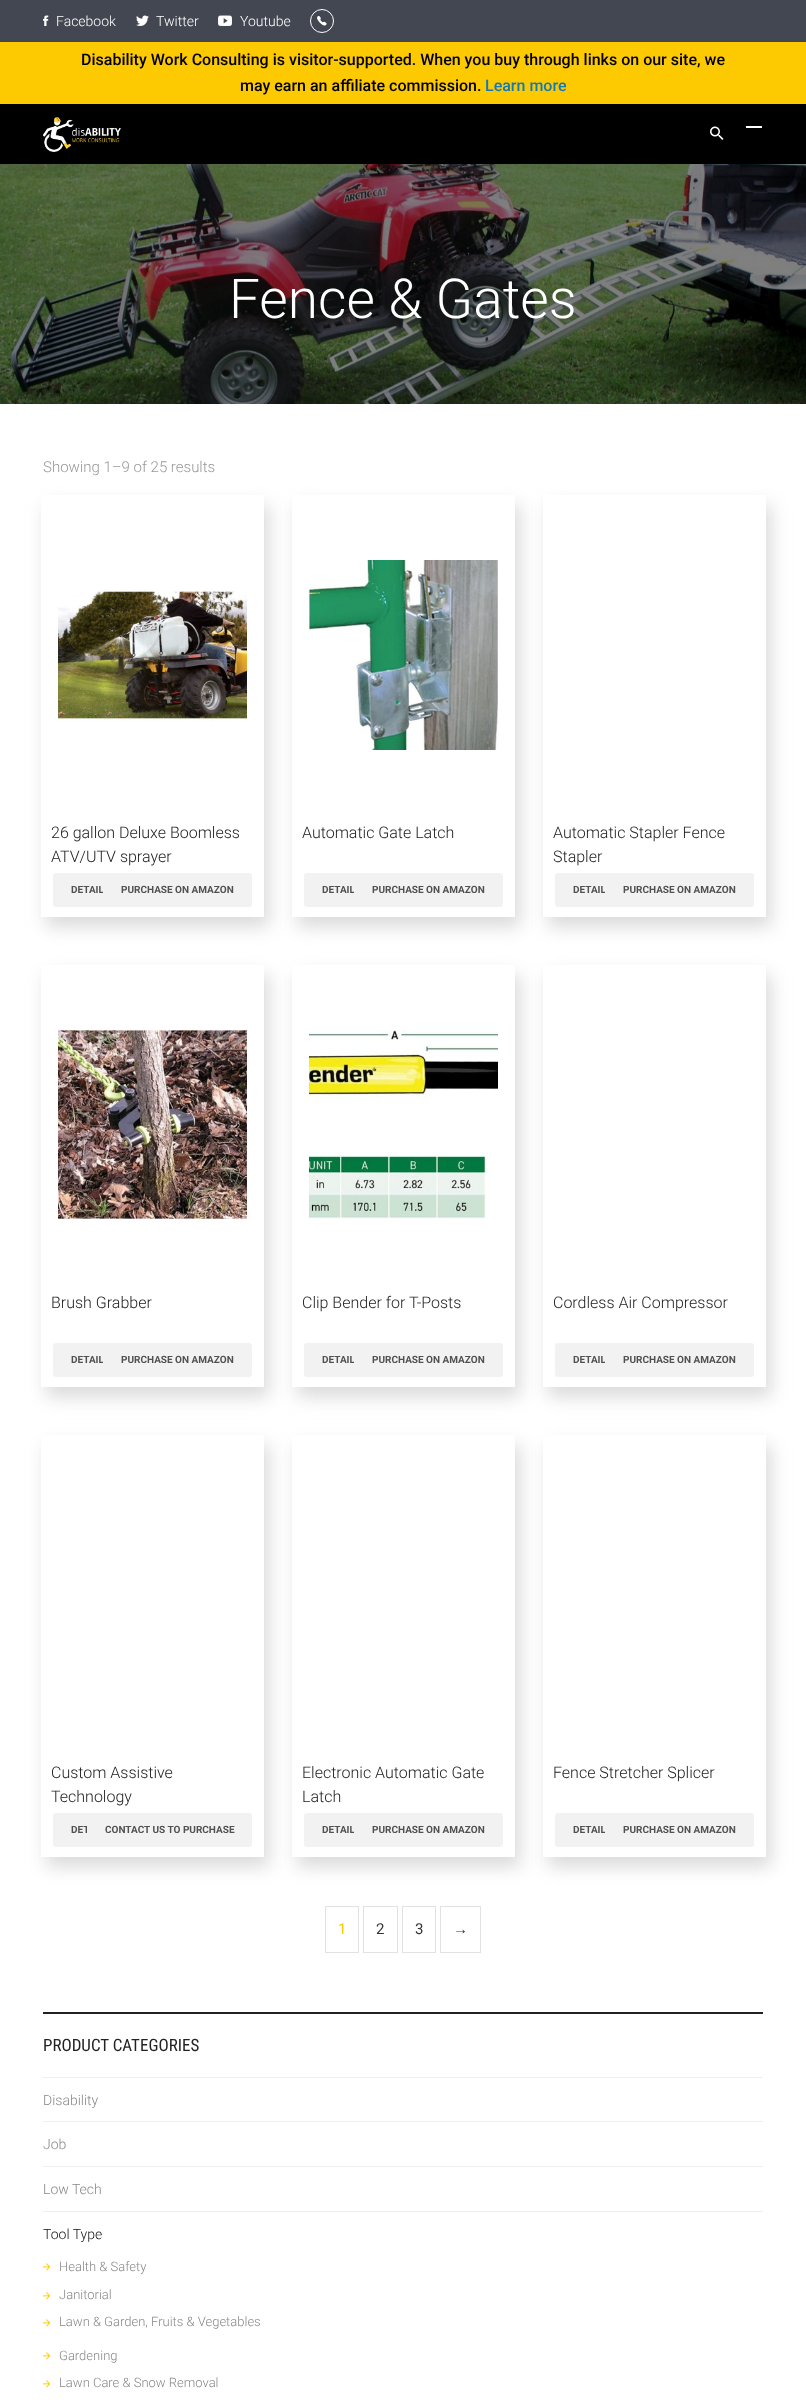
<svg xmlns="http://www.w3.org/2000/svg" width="806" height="2406">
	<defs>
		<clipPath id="clip1"><path d="M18 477H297V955H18ZM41 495H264V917H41Z" clip-rule="evenodd" /></clipPath>
		<clipPath id="clip2"><path d="M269 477H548V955H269ZM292 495H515V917H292Z" clip-rule="evenodd" /></clipPath>
		<clipPath id="clip3"><path d="M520 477H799V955H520ZM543 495H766V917H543Z" clip-rule="evenodd" /></clipPath>
		<clipPath id="clip4"><path d="M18 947H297V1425H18ZM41 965H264V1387H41Z" clip-rule="evenodd" /></clipPath>
		<clipPath id="clip5"><path d="M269 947H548V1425H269ZM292 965H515V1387H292Z" clip-rule="evenodd" /></clipPath>
		<clipPath id="clip6"><path d="M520 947H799V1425H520ZM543 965H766V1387H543Z" clip-rule="evenodd" /></clipPath>
		<clipPath id="clip7"><path d="M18 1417H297V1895H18ZM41 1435H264V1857H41Z" clip-rule="evenodd" /></clipPath>
		<clipPath id="clip8"><path d="M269 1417H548V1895H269ZM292 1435H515V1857H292Z" clip-rule="evenodd" /></clipPath>
		<clipPath id="clip9"><path d="M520 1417H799V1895H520ZM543 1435H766V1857H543Z" clip-rule="evenodd" /></clipPath>
	</defs>
	<rect width="100%" height="100%" fill="#434752" />
	<image x="43" y="15" width="6" height="11" href="assets/img1.png" />
	<text x="56" y="26" font-family="Roboto" font-size="14" font-weight="300" fill="#FFFFFF">Facebook</text>
	<image x="136" y="15" width="13" height="11" href="assets/img2.png" />
	<text x="156" y="26" font-family="Roboto" font-size="14" font-weight="300" fill="#FFFFFF">Twitter</text>
	<image x="218" y="15" width="14" height="11" href="assets/img3.png" />
	<text x="240" y="26" font-family="Roboto" font-size="14" font-weight="300" fill="#FFFFFF">Youtube</text>
	<circle cx="322" cy="21" r="11.5" fill="none" stroke="#FFFFFF" />
	<image x="317" y="16" width="10" height="10" href="assets/img4.png" />
	<rect x="0" y="42" width="806" height="62" fill="#FDC900" />
	<g font-family="Roboto" font-size="16" font-weight="500" fill="#000000">
		<text x="81" y="65">Disability Work Consulting is visitor-supported. When you buy through links on our site, we</text>
		<text x="240" y="91">may earn an affiliate commission.</text>
	</g>
	<text x="485" y="91" font-family="Roboto" font-size="16" font-weight="500" fill="#117ABC">Learn more</text>
	<rect x="0" y="104" width="806" height="60" fill="#000000" />
	<image x="43" y="117" width="78" height="35" href="assets/img5.png" />
	<image x="710" y="126" width="14" height="14" href="assets/img6.png" />
	<rect x="746" y="126" width="16" height="2" fill="#FFFFFF" />
	<rect x="0" y="404" width="806" height="2002" fill="#FFFFFF" />
	<image x="0" y="164" width="806" height="240" href="assets/img7.png" />
	<text x="229" y="318" font-family="Roboto" font-size="55" font-weight="300" fill="#FFFFFF">Fence &amp; Gates</text>
	<text x="43" y="472" font-family="Roboto" font-size="15" font-weight="300" fill="#999999">Showing 1–9 of 25 results</text>
	<g clip-path="url(#clip1)">
		<rect x="46" y="505" width="223" height="422" fill="#DADADA" filter="blur(9px)" />
	</g>
	<image x="58" y="590" width="189" height="132" href="assets/img8.png" />
	<g font-family="Roboto" font-size="16" font-weight="300" fill="#222222">
		<text x="51" y="838">26 gallon Deluxe Boomless</text>
		<text x="51" y="862">ATV/UTV sprayer</text>
	</g>
	<rect x="53" y="873" width="75" height="34" rx="3" fill="#F2F2F2" />
	<text x="71" y="893" font-family="Roboto" font-size="10" font-weight="700" fill="#515151">DETAIL</text>
	<rect x="103" y="873" width="149" height="34" rx="3" fill="#F2F2F2" />
	<text x="121" y="893" font-family="Roboto" font-size="10" font-weight="700" fill="#515151">PURCHASE ON AMAZON</text>
	<g clip-path="url(#clip2)">
		<rect x="297" y="505" width="223" height="422" fill="#DADADA" filter="blur(9px)" />
	</g>
	<image x="309" y="560" width="189" height="190" href="assets/img9.png" />
	<text x="302" y="838" font-family="Roboto" font-size="16" font-weight="300" fill="#222222">Automatic Gate Latch</text>
	<rect x="304" y="873" width="75" height="34" rx="3" fill="#F2F2F2" />
	<text x="322" y="893" font-family="Roboto" font-size="10" font-weight="700" fill="#515151">DETAIL</text>
	<rect x="354" y="873" width="149" height="34" rx="3" fill="#F2F2F2" />
	<text x="372" y="893" font-family="Roboto" font-size="10" font-weight="700" fill="#515151">PURCHASE ON AMAZON</text>
	<g clip-path="url(#clip3)">
		<rect x="548" y="505" width="223" height="422" fill="#DADADA" filter="blur(9px)" />
	</g>
	<g font-family="Roboto" font-size="16" font-weight="300" fill="#222222">
		<text x="553" y="838">Automatic Stapler Fence</text>
		<text x="553" y="862">Stapler</text>
	</g>
	<rect x="555" y="873" width="75" height="34" rx="3" fill="#F2F2F2" />
	<text x="573" y="893" font-family="Roboto" font-size="10" font-weight="700" fill="#515151">DETAIL</text>
	<rect x="605" y="873" width="149" height="34" rx="3" fill="#F2F2F2" />
	<text x="623" y="893" font-family="Roboto" font-size="10" font-weight="700" fill="#515151">PURCHASE ON AMAZON</text>
	<g clip-path="url(#clip4)">
		<rect x="46" y="975" width="223" height="422" fill="#DADADA" filter="blur(9px)" />
	</g>
	<image x="58" y="1030" width="189" height="189" href="assets/img10.png" />
	<text x="51" y="1308" font-family="Roboto" font-size="16" font-weight="300" fill="#222222">Brush Grabber</text>
	<rect x="53" y="1343" width="75" height="34" rx="3" fill="#F2F2F2" />
	<text x="71" y="1363" font-family="Roboto" font-size="10" font-weight="700" fill="#515151">DETAIL</text>
	<rect x="103" y="1343" width="149" height="34" rx="3" fill="#F2F2F2" />
	<text x="121" y="1363" font-family="Roboto" font-size="10" font-weight="700" fill="#515151">PURCHASE ON AMAZON</text>
	<g clip-path="url(#clip5)">
		<rect x="297" y="975" width="223" height="422" fill="#DADADA" filter="blur(9px)" />
	</g>
	<image x="309" y="1030" width="189" height="189" href="assets/img11.png" />
	<text x="302" y="1308" font-family="Roboto" font-size="16" font-weight="300" fill="#222222">Clip Bender for T-Posts</text>
	<rect x="304" y="1343" width="75" height="34" rx="3" fill="#F2F2F2" />
	<text x="322" y="1363" font-family="Roboto" font-size="10" font-weight="700" fill="#515151">DETAIL</text>
	<rect x="354" y="1343" width="149" height="34" rx="3" fill="#F2F2F2" />
	<text x="372" y="1363" font-family="Roboto" font-size="10" font-weight="700" fill="#515151">PURCHASE ON AMAZON</text>
	<g clip-path="url(#clip6)">
		<rect x="548" y="975" width="223" height="422" fill="#DADADA" filter="blur(9px)" />
	</g>
	<text x="553" y="1308" font-family="Roboto" font-size="16" font-weight="300" fill="#222222">Cordless Air Compressor</text>
	<rect x="555" y="1343" width="75" height="34" rx="3" fill="#F2F2F2" />
	<text x="573" y="1363" font-family="Roboto" font-size="10" font-weight="700" fill="#515151">DETAIL</text>
	<rect x="605" y="1343" width="149" height="34" rx="3" fill="#F2F2F2" />
	<text x="623" y="1363" font-family="Roboto" font-size="10" font-weight="700" fill="#515151">PURCHASE ON AMAZON</text>
	<g clip-path="url(#clip7)">
		<rect x="46" y="1445" width="223" height="422" fill="#DADADA" filter="blur(9px)" />
	</g>
	<g font-family="Roboto" font-size="16" font-weight="300" fill="#222222">
		<text x="51" y="1778">Custom Assistive</text>
		<text x="51" y="1802">Technology</text>
	</g>
	<rect x="53" y="1813" width="75" height="34" rx="3" fill="#F2F2F2" />
	<text x="71" y="1833" font-family="Roboto" font-size="10" font-weight="700" fill="#515151">DET</text>
	<rect x="87" y="1813" width="165" height="34" rx="3" fill="#F2F2F2" />
	<text x="105" y="1833" font-family="Roboto" font-size="10" font-weight="700" fill="#515151">CONTACT US TO PURCHASE</text>
	<g clip-path="url(#clip8)">
		<rect x="297" y="1445" width="223" height="422" fill="#DADADA" filter="blur(9px)" />
	</g>
	<g font-family="Roboto" font-size="16" font-weight="300" fill="#222222">
		<text x="302" y="1778">Electronic Automatic Gate</text>
		<text x="302" y="1802">Latch</text>
	</g>
	<rect x="304" y="1813" width="75" height="34" rx="3" fill="#F2F2F2" />
	<text x="322" y="1833" font-family="Roboto" font-size="10" font-weight="700" fill="#515151">DETAIL</text>
	<rect x="354" y="1813" width="149" height="34" rx="3" fill="#F2F2F2" />
	<text x="372" y="1833" font-family="Roboto" font-size="10" font-weight="700" fill="#515151">PURCHASE ON AMAZON</text>
	<g clip-path="url(#clip9)">
		<rect x="548" y="1445" width="223" height="422" fill="#DADADA" filter="blur(9px)" />
	</g>
	<text x="553" y="1778" font-family="Roboto" font-size="16" font-weight="300" fill="#222222">Fence Stretcher Splicer</text>
	<rect x="555" y="1813" width="75" height="34" rx="3" fill="#F2F2F2" />
	<text x="573" y="1833" font-family="Roboto" font-size="10" font-weight="700" fill="#515151">DETAIL</text>
	<rect x="605" y="1813" width="149" height="34" rx="3" fill="#F2F2F2" />
	<text x="623" y="1833" font-family="Roboto" font-size="10" font-weight="700" fill="#515151">PURCHASE ON AMAZON</text>
	<rect x="325.5" y="1906.5" width="33" height="46" fill="none" stroke="#E2E2E2" />
	<text x="338" y="1934" font-family="Roboto" font-size="15" fill="#FDC900">1</text>
	<rect x="363.5" y="1906.5" width="34" height="46" fill="none" stroke="#E2E2E2" />
	<text x="376" y="1934" font-family="Roboto" font-size="15" fill="#333333">2</text>
	<rect x="402.5" y="1906.5" width="33" height="46" fill="none" stroke="#E2E2E2" />
	<text x="415" y="1934" font-family="Roboto" font-size="15" fill="#333333">3</text>
	<rect x="440.5" y="1906.5" width="40" height="46" fill="none" stroke="#E2E2E2" />
	<text x="453" y="1934" font-family="Liberation Serif" font-size="15" fill="#333333">→</text>
	<rect x="43" y="2012" width="720" height="2" fill="#222222" />
	<text x="43" y="2051" font-family="Roboto Condensed" font-size="17" fill="#222222">PRODUCT CATEGORIES</text>
	<rect x="43" y="2077" width="720" height="1" fill="#EEEEEE" />
	<text x="43" y="2105" font-family="Roboto" font-size="14" font-weight="300" fill="#888888">Disability</text>
	<rect x="43" y="2121" width="720" height="1" fill="#EEEEEE" />
	<text x="43" y="2149" font-family="Roboto" font-size="14" font-weight="300" fill="#888888">Job</text>
	<rect x="43" y="2166" width="720" height="1" fill="#EEEEEE" />
	<text x="43" y="2194" font-family="Roboto" font-size="14" font-weight="300" fill="#888888">Low Tech</text>
	<rect x="43" y="2211" width="720" height="1" fill="#EEEEEE" />
	<text x="43" y="2239" font-family="Roboto" font-size="14" font-weight="300" fill="#111111">Tool Type</text>
	<image x="43" y="2263" width="8" height="8" href="assets/img12.png" />
	<text x="59" y="2271" font-family="Roboto" font-size="13" font-weight="300" fill="#888888">Health &amp; Safety</text>
	<image x="43" y="2292" width="8" height="8" href="assets/img12.png" />
	<text x="59" y="2299" font-family="Roboto" font-size="13" font-weight="300" fill="#888888">Janitorial</text>
	<image x="43" y="2319" width="8" height="8" href="assets/img12.png" />
	<text x="59" y="2326" font-family="Roboto" font-size="13" font-weight="300" fill="#888888">Lawn &amp; Garden, Fruits &amp; Vegetables</text>
	<image x="43" y="2352" width="8" height="8" href="assets/img12.png" />
	<text x="59" y="2360" font-family="Roboto" font-size="13" font-weight="300" fill="#888888">Gardening</text>
	<image x="43" y="2380" width="8" height="8" href="assets/img12.png" />
	<text x="59" y="2387" font-family="Roboto" font-size="13" font-weight="300" fill="#888888">Lawn Care &amp; Snow Removal</text>
</svg>
